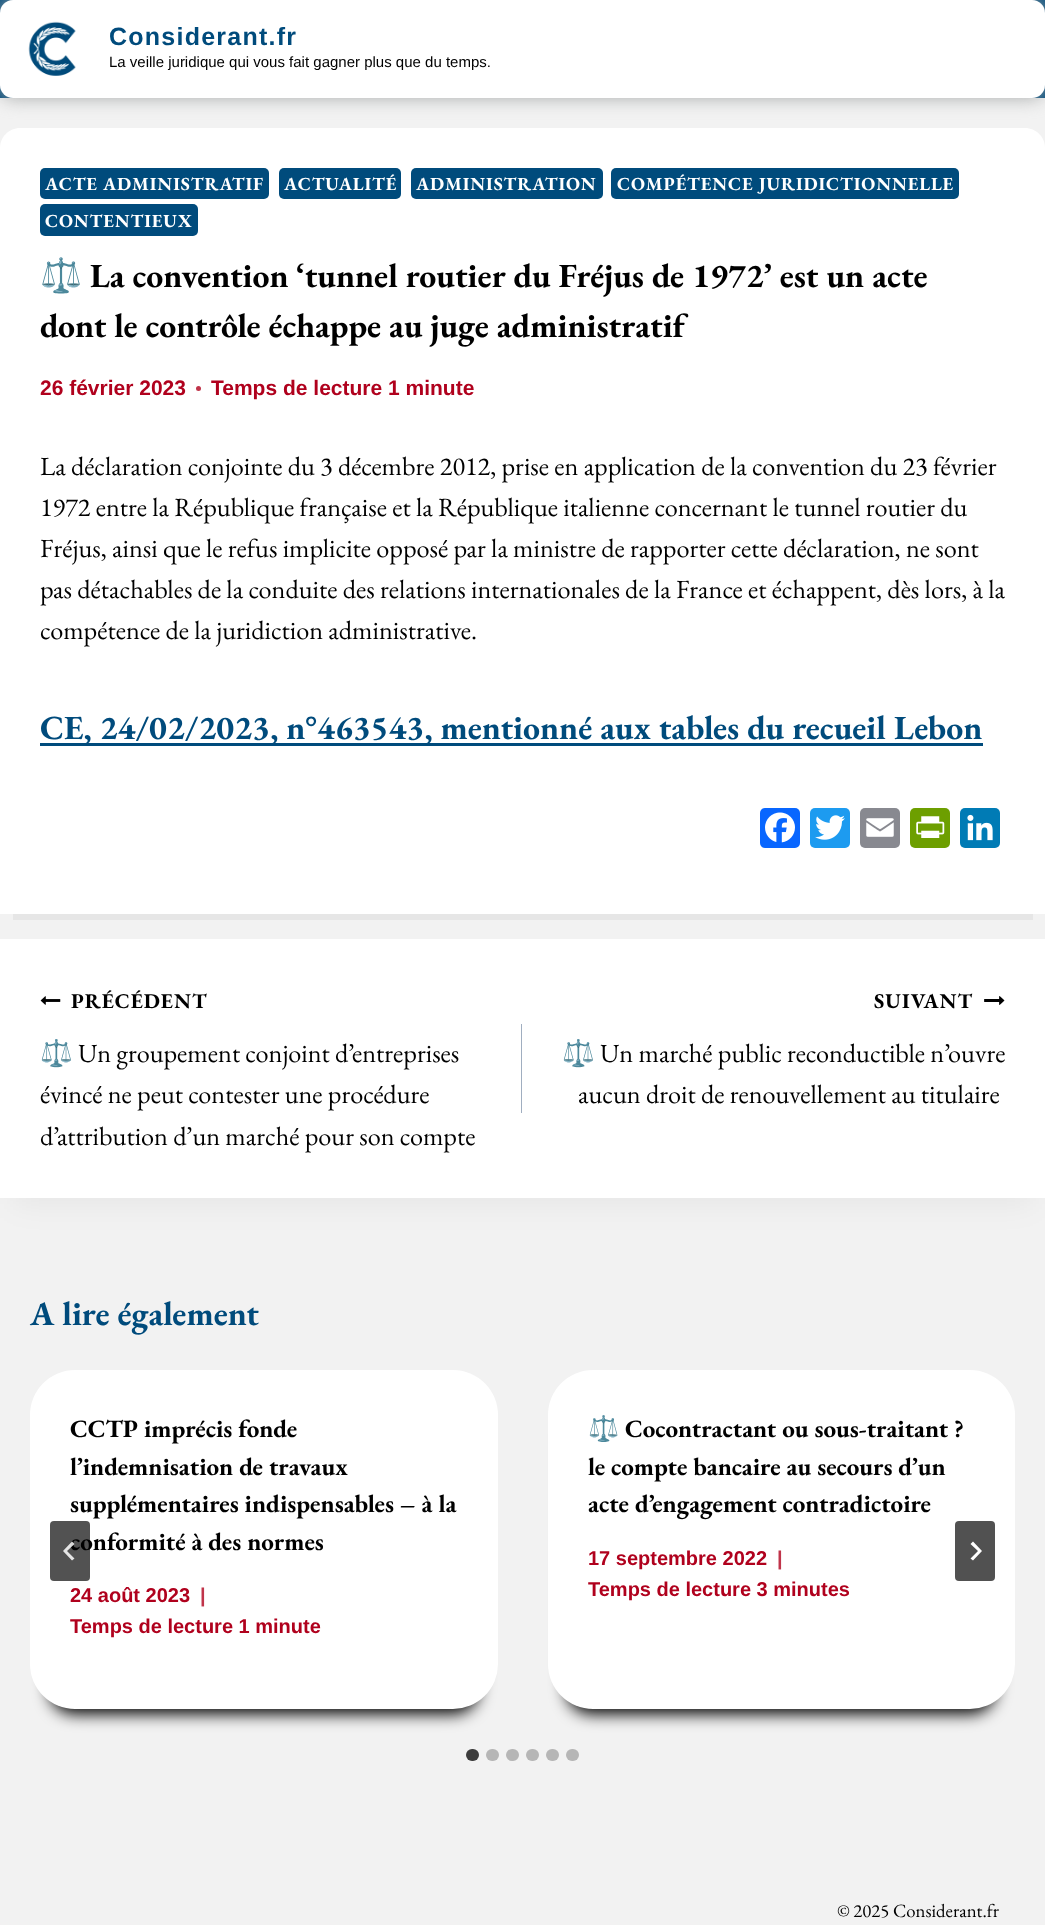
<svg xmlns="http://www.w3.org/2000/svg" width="1045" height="1925">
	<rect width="100%" height="100%" fill="#F2F2F2" />
	<rect x="0" y="0" width="1045" height="98" fill="#004B7C" />
	<rect x="0" y="0" width="1045" height="98" rx="13" fill="#A9ACAC" filter="blur(9px)" />
	<rect x="0" y="0" width="1045" height="98" rx="13" fill="#FFFFFF" />
	<image x="28" y="21" width="48" height="55" href="assets/img1.png" />
	<text x="109" y="45" font-family="Liberation Sans" font-size="25" font-weight="700" letter-spacing="1.25" fill="#004B7C">Considerant.fr</text>
	<text x="109" y="67" font-family="Liberation Sans" font-size="15" fill="#000000">La veille juridique qui vous fait gagner plus que du temps.</text>
	<rect x="13" y="914" width="1020" height="6" fill="#E6E6E6" />
	<path d="M20 128H1025C1036 128 1045 137 1045 148V914H0V148C0 137 9 128 20 128Z" fill="#FFFFFF" />
	<rect x="40" y="168" width="229" height="31" rx="5" fill="#004B7C" />
	<text x="45" y="190" font-family="EB Garamond" font-size="18.4" font-weight="700" letter-spacing="0.9" fill="#FFFFFF">ACTE ADMINISTRATIF</text>
	<rect x="279" y="168" width="122" height="31" rx="5" fill="#004B7C" />
	<text x="284" y="190" font-family="EB Garamond" font-size="18.4" font-weight="700" letter-spacing="0.9" fill="#FFFFFF">ACTUALITÉ</text>
	<rect x="411" y="168" width="192" height="31" rx="5" fill="#004B7C" />
	<text x="416" y="190" font-family="EB Garamond" font-size="18.4" font-weight="700" letter-spacing="0.9" fill="#FFFFFF">ADMINISTRATION</text>
	<rect x="611" y="168" width="348" height="31" rx="5" fill="#004B7C" />
	<text x="617" y="190" font-family="EB Garamond" font-size="18.4" font-weight="700" letter-spacing="0.9" fill="#FFFFFF">COMPÉTENCE JURIDICTIONNELLE</text>
	<rect x="40" y="204" width="158" height="32" rx="5" fill="#004B7C" />
	<text x="45" y="227" font-family="EB Garamond" font-size="18.4" font-weight="700" letter-spacing="0.9" fill="#FFFFFF">CONTENTIEUX</text>
	<text x="40" y="287" font-family="Noto Color Emoji" font-size="33.75" font-weight="700" fill="#000000">⚖️</text>
	<g font-family="EB Garamond" font-size="33.75" font-weight="700" fill="#000000">
		<text x="90" y="287">La convention ‘tunnel routier du Fréjus de 1972’ est un acte</text>
		<text x="40" y="337">dont le contrôle échappe au juge administratif</text>
	</g>
	<text x="40" y="395" font-family="Liberation Sans" font-size="21" font-weight="700" fill="#B0011D">26 février 2023</text>
	<circle cx="198.5" cy="388.5" r="2.5" fill="#C0344A" />
	<text x="211" y="395" font-family="Liberation Sans" font-size="21" font-weight="700" fill="#B0011D">Temps de lecture 1 minute</text>
	<g font-family="EB Garamond" font-size="26.25" fill="#000000">
		<text x="40" y="475">La déclaration conjointe du 3 décembre 2012, prise en application de la convention du 23 février</text>
		<text x="40" y="516">1972 entre la République française et la République italienne concernant le tunnel routier du</text>
		<text x="40" y="557">Fréjus, ainsi que le refus implicite opposé par la ministre de rapporter cette déclaration, ne sont</text>
		<text x="40" y="598">pas détachables de la conduite des relations internationales de la France et échappent, dès lors, à la</text>
		<text x="40" y="639">compétence de la juridiction administrative.</text>
	</g>
	<rect x="40" y="743" width="943" height="3" fill="#004B7C" />
	<text x="40" y="739" font-family="EB Garamond" font-size="33.75" font-weight="700" fill="#004B7C">CE, 24/02/2023, n°463543, mentionné aux tables du recueil Lebon</text>
	<rect x="760" y="808" width="40" height="40" rx="5" fill="#0866FF" />
	<image x="765" y="812" width="30" height="31" href="assets/img2.png" />
	<rect x="810" y="808" width="40" height="40" rx="5" fill="#1D9BF0" />
	<image x="815" y="815" width="30" height="25" href="assets/img3.png" />
	<rect x="860" y="808" width="40" height="40" rx="5" fill="#888990" />
	<image x="866" y="818" width="28" height="19" href="assets/img4.png" />
	<rect x="910" y="808" width="40" height="40" rx="5" fill="#6D9F00" />
	<image x="916" y="816" width="29" height="22" href="assets/img5.png" />
	<rect x="960" y="808" width="40" height="40" rx="5" fill="#007BB5" />
	<image x="967" y="814" width="26" height="27" href="assets/img6.png" />
	<rect x="13" y="970" width="1020" height="234" fill="#000000" fill-opacity="0.05" filter="blur(15.5px)" />
	<rect x="0" y="939" width="1045" height="259" fill="#FFFFFF" />
	<image x="40" y="996" width="21" height="9" href="assets/img7.png" />
	<text x="71" y="1008" font-family="EB Garamond" font-size="21" font-weight="700" letter-spacing="1" fill="#000000">PRÉCÉDENT</text>
	<text x="40" y="1062" font-family="Noto Color Emoji" font-size="26.25" fill="#000000">⚖️</text>
	<g font-family="EB Garamond" font-size="26.25" fill="#000000">
		<text x="78" y="1062">Un groupement conjoint d’entreprises</text>
		<text x="40" y="1103">évincé ne peut contester une procédure</text>
		<text x="40" y="1145">d’attribution d’un marché pour son compte</text>
	</g>
	<rect x="521" y="1024" width="1" height="89" fill="#A0AEC0" />
	<text x="874" y="1008" font-family="EB Garamond" font-size="21" font-weight="700" letter-spacing="1" fill="#000000">SUIVANT</text>
	<image x="984" y="996" width="21" height="9" href="assets/img8.png" />
	<text x="562" y="1062" font-family="Noto Color Emoji" font-size="26.25" fill="#000000">⚖️</text>
	<g font-family="EB Garamond" font-size="26.25" fill="#000000">
		<text x="600" y="1062">Un marché public reconductible n’ouvre</text>
		<text x="578" y="1103">aucun droit de renouvellement au titulaire</text>
	</g>
	<text x="30" y="1325" font-family="EB Garamond" font-size="33.75" font-weight="700" fill="#004B7C">A lire également</text>
	<rect x="49" y="1413" width="430" height="301" rx="26" fill="#000000" filter="blur(8px)" />
	<rect x="30" y="1370" width="468" height="339" rx="45" fill="#FFFFFF" />
	<g font-family="EB Garamond" font-size="25" font-weight="700" fill="#000000">
		<text x="70" y="1437">CCTP imprécis fonde</text>
		<text x="70" y="1475">l’indemnisation de travaux</text>
		<text x="70" y="1512">supplémentaires indispensables – à la</text>
		<text x="70" y="1550">conformité à des normes</text>
	</g>
	<text x="70" y="1602" font-family="Liberation Sans" font-size="20" font-weight="700" fill="#B0011D">24 août 2023</text>
	<text x="200" y="1602" font-family="Liberation Sans" font-size="20" font-weight="700" fill="#C0344A">|</text>
	<text x="70" y="1633" font-family="Liberation Sans" font-size="20" font-weight="700" fill="#B0011D">Temps de lecture 1 minute</text>
	<rect x="566" y="1413" width="430" height="301" rx="26" fill="#000000" filter="blur(8px)" />
	<rect x="548" y="1370" width="467" height="339" rx="45" fill="#FFFFFF" />
	<text x="588" y="1437" font-family="Noto Color Emoji" font-size="25" font-weight="700" fill="#000000">⚖️</text>
	<g font-family="EB Garamond" font-size="25" font-weight="700" fill="#000000">
		<text x="625" y="1437">Cocontractant ou sous-traitant ?</text>
		<text x="588" y="1475">le compte bancaire au secours d’un</text>
		<text x="588" y="1512">acte d’engagement contradictoire</text>
	</g>
	<text x="588" y="1565" font-family="Liberation Sans" font-size="20" font-weight="700" fill="#B0011D">17 septembre 2022</text>
	<text x="777" y="1565" font-family="Liberation Sans" font-size="20" font-weight="700" fill="#C0344A">|</text>
	<text x="588" y="1596" font-family="Liberation Sans" font-size="20" font-weight="700" fill="#B0011D">Temps de lecture 3 minutes</text>
	<rect x="50" y="1521" width="40" height="60" rx="4" fill="#000000" fill-opacity="0.68" />
	<path d="M72 1541.5L74.5 1544L67 1551L74.5 1558.5L72 1560.5L63 1551Z" fill="#FFFFFF" fill-opacity="0.85" />
	<rect x="955" y="1521" width="40" height="60" rx="4" fill="#515151" />
	<path d="M973 1541.5L970.5 1544L978 1551L970.5 1558.5L973 1560.5L982 1551Z" fill="#FFFFFF" />
	<rect x="466" y="1749" width="13" height="12" rx="6" fill="#3D3D3D" />
	<rect x="486" y="1749" width="13" height="12" rx="6" fill="#B6B6B6" />
	<rect x="506" y="1749" width="13" height="12" rx="6" fill="#B6B6B6" />
	<rect x="526" y="1749" width="13" height="12" rx="6" fill="#B6B6B6" />
	<rect x="546" y="1749" width="13" height="12" rx="6" fill="#B6B6B6" />
	<rect x="566" y="1749" width="13" height="12" rx="6" fill="#B6B6B6" />
	<text x="837" y="1917" font-family="EB Garamond" font-size="18.75" fill="#000000">© 2025 Considerant.fr</text>
</svg>
